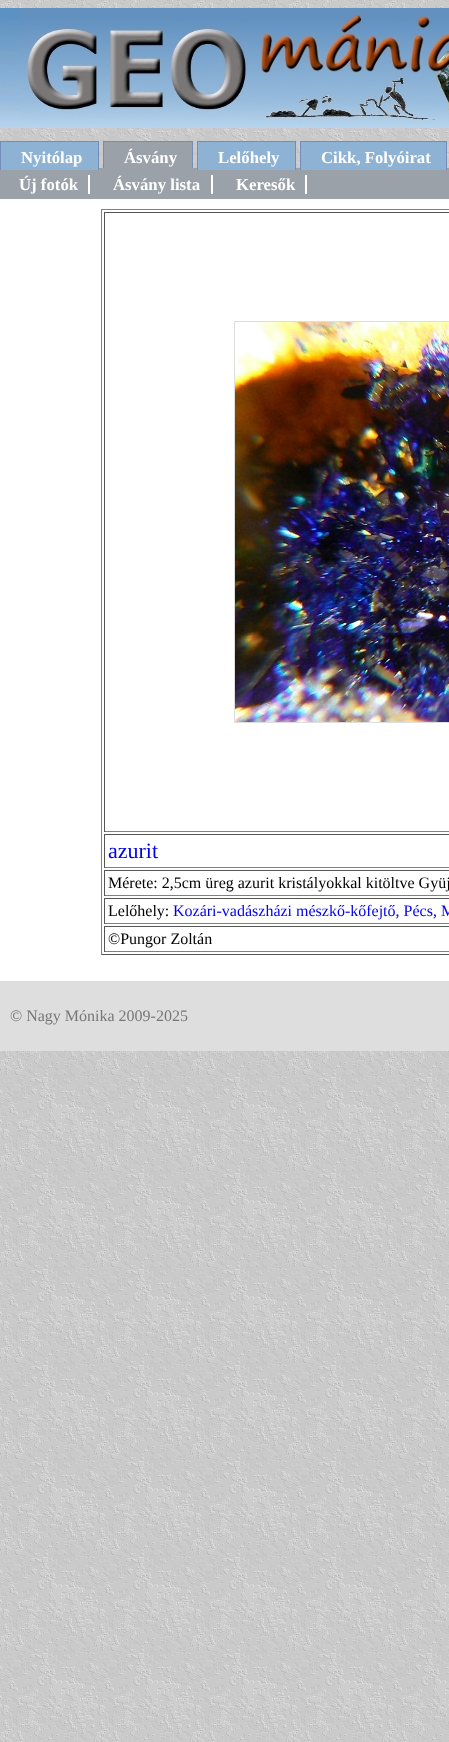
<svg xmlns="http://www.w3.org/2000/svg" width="449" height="1742">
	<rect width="100%" height="100%" fill="#FFFFFF" />
	<image x="0" y="0" width="449" height="1742" href="assets/img1.png" />
	<image x="0" y="8" width="20" height="120" href="assets/img2.png" />
	<image x="20" y="8" width="429" height="120" href="assets/img3.png" />
	<rect x="0" y="168" width="449" height="31" fill="#9AA1A9" />
	<rect x="1" y="142" width="97" height="28" fill="#8DB2D4" />
	<text x="21" y="163" font-family="Liberation Serif" font-size="16.75" font-weight="700" fill="#FFFFFF">Nyitólap</text>
	<rect x="0" y="141" width="99" height="1" fill="#738CBA" />
	<rect x="98" y="141" width="1" height="29" fill="#738CBA" />
	<rect x="0" y="141" width="1" height="29" fill="#738CBA" />
	<rect x="104" y="142" width="88" height="26" fill="#9AA1A9" />
	<text x="124" y="163" font-family="Liberation Serif" font-size="16.75" font-weight="700" fill="#FFFFFF">Ásvány</text>
	<rect x="103" y="141" width="90" height="1" fill="#738CBA" />
	<rect x="192" y="141" width="1" height="27" fill="#738CBA" />
	<rect x="103" y="141" width="1" height="27" fill="#738CBA" />
	<rect x="198" y="142" width="97" height="28" fill="#8DB2D4" />
	<text x="218" y="163" font-family="Liberation Serif" font-size="16.75" font-weight="700" fill="#FFFFFF">Lelőhely</text>
	<rect x="197" y="141" width="99" height="1" fill="#738CBA" />
	<rect x="295" y="141" width="1" height="29" fill="#738CBA" />
	<rect x="197" y="141" width="1" height="29" fill="#738CBA" />
	<rect x="301" y="142" width="145" height="28" fill="#8DB2D4" />
	<text x="321" y="163" font-family="Liberation Serif" font-size="16.75" font-weight="700" fill="#FFFFFF">Cikk, Folyóirat</text>
	<rect x="300" y="141" width="147" height="1" fill="#738CBA" />
	<rect x="446" y="141" width="1" height="29" fill="#738CBA" />
	<rect x="300" y="141" width="1" height="29" fill="#738CBA" />
	<rect x="0" y="199" width="449" height="782" fill="#FFFFFF" />
	<text x="19" y="190" font-family="Liberation Serif" font-size="16.75" font-weight="700" fill="#FFFFFF">Új fotók</text>
	<rect x="88" y="175" width="2" height="19" fill="#FFFFFF" />
	<text x="113" y="190" font-family="Liberation Serif" font-size="16.75" font-weight="700" fill="#FFFFFF">Ásvány lista</text>
	<rect x="211" y="175" width="2" height="19" fill="#FFFFFF" />
	<text x="236" y="190" font-family="Liberation Serif" font-size="16.75" font-weight="700" fill="#FFFFFF">Keresők</text>
	<rect x="305" y="175" width="2" height="19" fill="#FFFFFF" />
	<rect x="101" y="209" width="348" height="1" fill="#808080" />
	<rect x="101" y="954" width="348" height="1" fill="#555555" />
	<rect x="101" y="209" width="1" height="746" fill="#808080" />
	<rect x="104" y="212" width="345" height="1" fill="#555555" />
	<rect x="104" y="831" width="345" height="1" fill="#808080" />
	<rect x="104" y="212" width="1" height="620" fill="#555555" />
	<rect x="234.5" y="321.5" width="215" height="401" fill="none" stroke="#DEDEDE" />
	<image x="235" y="322" width="214" height="400" href="assets/img4.png" />
	<rect x="104" y="834" width="345" height="1" fill="#555555" />
	<rect x="104" y="867" width="345" height="1" fill="#808080" />
	<rect x="104" y="834" width="1" height="34" fill="#555555" />
	<text x="108" y="858" font-family="Liberation Serif" font-size="22" fill="#0000EE">azurit</text>
	<rect x="104" y="870" width="345" height="1" fill="#555555" />
	<rect x="104" y="895" width="345" height="1" fill="#808080" />
	<rect x="104" y="870" width="1" height="26" fill="#555555" />
	<text x="108" y="888" font-family="Liberation Serif" font-size="16" fill="#000000">Mérete: 2,5cm üreg azurit kristályokkal kitöltve Gyüj</text>
	<rect x="104" y="898" width="345" height="1" fill="#555555" />
	<rect x="104" y="923" width="345" height="1" fill="#808080" />
	<rect x="104" y="898" width="1" height="26" fill="#555555" />
	<text x="108" y="916" font-family="Liberation Serif" font-size="16" fill="#000000">Lelőhely:</text>
	<text x="173" y="916" font-family="Liberation Serif" font-size="16" fill="#0000EE">Kozári-vadászházi mészkő-kőfejtő, Pécs, M</text>
	<rect x="104" y="926" width="345" height="1" fill="#555555" />
	<rect x="104" y="951" width="345" height="1" fill="#808080" />
	<rect x="104" y="926" width="1" height="26" fill="#555555" />
	<text x="108" y="944" font-family="Liberation Serif" font-size="16" fill="#000000">©Pungor Zoltán</text>
	<rect x="0" y="981" width="449" height="70" fill="#DEDEDE" />
	<text x="10" y="1021" font-family="Liberation Serif" font-size="16" fill="#777777">© Nagy Mónika 2009-2025</text>
</svg>
